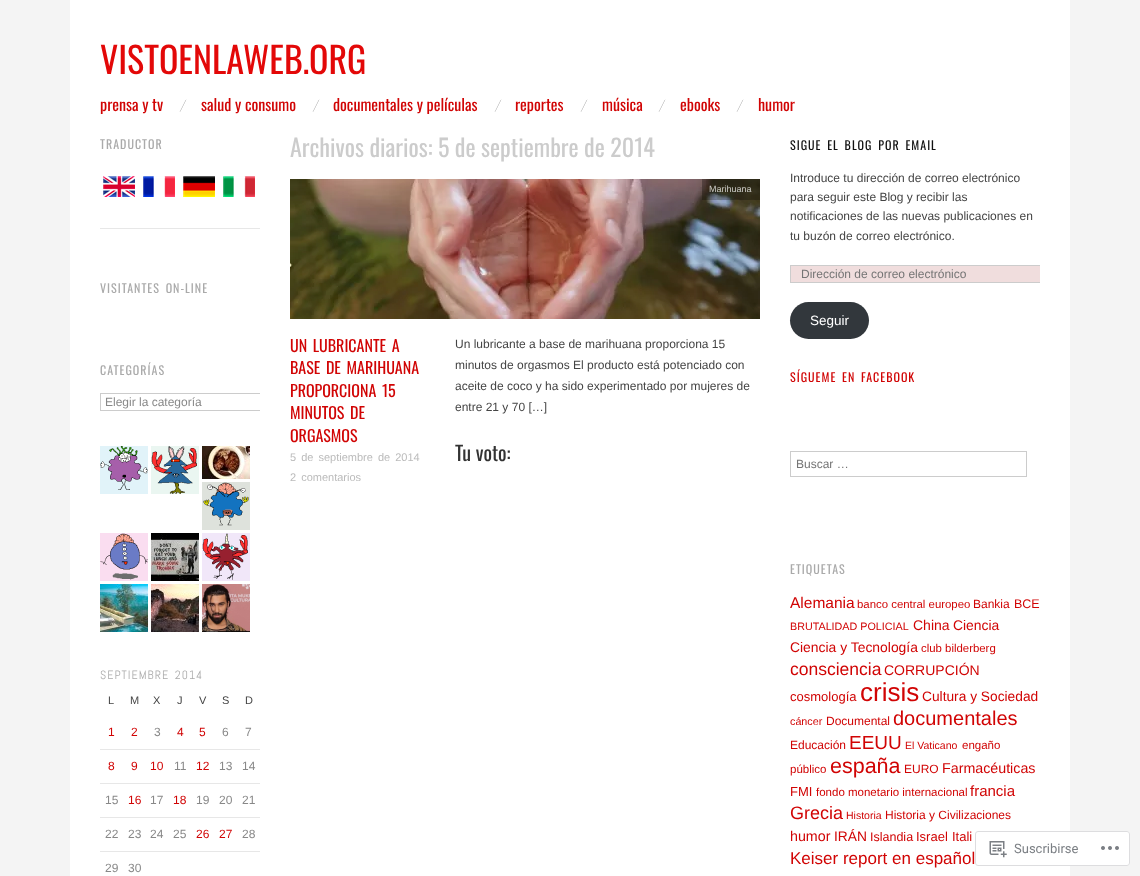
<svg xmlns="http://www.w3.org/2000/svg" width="1140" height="876">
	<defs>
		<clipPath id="clip1"><rect x="100" y="362" width="160" height="54" /></clipPath>
		<clipPath id="clip2"><rect x="790" y="136" width="250" height="203" /></clipPath>
	</defs>
	<rect width="100%" height="100%" fill="#F4F4F4" />
	<rect x="70" y="0" width="1000" height="876" fill="#FFFFFF" />
	<text x="100" y="74" font-family="Oswald" font-size="36" fill="#E30808">VISTOENLAWEB.ORG</text>
	<text x="100" y="111" font-family="Oswald" font-size="16" fill="#D10404">prensa y tv</text>
	<image x="179" y="99" width="8" height="13" href="assets/img1.png" />
	<text x="201" y="111" font-family="Oswald" font-size="16" fill="#D10404">salud y consumo</text>
	<image x="312" y="99" width="8" height="13" href="assets/img1.png" />
	<text x="333" y="111" font-family="Oswald" font-size="16" fill="#D10404">documentales y películas</text>
	<image x="494" y="99" width="8" height="13" href="assets/img1.png" />
	<text x="515" y="111" font-family="Oswald" font-size="16" fill="#D10404">reportes</text>
	<image x="580" y="99" width="8" height="13" href="assets/img1.png" />
	<text x="602" y="111" font-family="Oswald" font-size="16" fill="#D10404">música</text>
	<image x="658" y="99" width="8" height="13" href="assets/img1.png" />
	<text x="680" y="111" font-family="Oswald" font-size="16" fill="#D10404">ebooks</text>
	<image x="736" y="99" width="8" height="13" href="assets/img1.png" />
	<text x="758" y="111" font-family="Oswald" font-size="16" fill="#D10404">humor</text>
	<text x="100" y="149" font-family="Oswald" font-size="12" letter-spacing="1" fill="#AAAAAA">TRADUCTOR</text>
	<rect x="100" y="228" width="160" height="1" fill="#E7E7E7" />
	<image x="103" y="176" width="32" height="21" href="assets/img2.png" />
	<image x="143" y="176" width="32" height="21" href="assets/img3.png" />
	<image x="183" y="176" width="32" height="21" href="assets/img4.png" />
	<image x="223" y="176" width="32" height="21" href="assets/img5.png" />
	<g font-family="Oswald" font-size="12" letter-spacing="1" fill="#AAAAAA">
		<text x="100" y="293" word-spacing="2">VISITANTES ON-LINE</text>
		<text x="100" y="375">CATEGORÍAS</text>
	</g>
	<g clip-path="url(#clip1)">
		<rect x="100.5" y="393.5" width="184" height="17" fill="none" stroke="#CCCCCC" />
	</g>
	<text x="105" y="406" font-family="Liberation Sans" font-size="12" fill="#888888">Elegir la categoría</text>
	<image x="100" y="446" width="48" height="48" href="assets/img6.png" />
	<image x="151" y="446" width="48" height="48" href="assets/img7.png" />
	<image x="202" y="446" width="48" height="33" href="assets/img8.png" />
	<image x="202" y="482" width="48" height="48" href="assets/img9.png" />
	<image x="100" y="533" width="48" height="48" href="assets/img10.png" />
	<image x="151" y="533" width="48" height="48" href="assets/img11.png" />
	<image x="202" y="533" width="48" height="48" href="assets/img12.png" />
	<image x="100" y="584" width="48" height="48" href="assets/img13.png" />
	<image x="151" y="584" width="48" height="48" href="assets/img14.png" />
	<image x="202" y="584" width="48" height="48" href="assets/img15.png" />
	<text x="100" y="679" word-spacing="2" font-family="Abel" font-size="12" letter-spacing="1" fill="#AAAAAA">SEPTIEMBRE 2014</text>
	<g font-family="Liberation Sans" font-size="11" fill="#444444">
		<text x="108" y="704">L</text>
		<text x="130" y="704">M</text>
		<text x="153" y="704">X</text>
		<text x="177" y="704">J</text>
		<text x="199" y="704">V</text>
		<text x="222" y="704">S</text>
		<text x="245" y="704">D</text>
	</g>
	<rect x="100" y="749" width="160" height="1" fill="#E7E7E7" />
	<g font-family="Liberation Sans" font-size="12" fill="#D10404">
		<text x="108" y="736">1</text>
		<text x="131" y="736">2</text>
	</g>
	<text x="154" y="736" font-family="Liberation Sans" font-size="12" fill="#888888">3</text>
	<g font-family="Liberation Sans" font-size="12" fill="#D10404">
		<text x="177" y="736">4</text>
		<text x="199" y="736">5</text>
	</g>
	<g font-family="Liberation Sans" font-size="12" fill="#888888">
		<text x="222" y="736">6</text>
		<text x="245" y="736">7</text>
	</g>
	<rect x="100" y="783" width="160" height="1" fill="#E7E7E7" />
	<g font-family="Liberation Sans" font-size="12" fill="#D10404">
		<text x="108" y="770">8</text>
		<text x="131" y="770">9</text>
		<text x="150" y="770">10</text>
	</g>
	<text x="174" y="770" font-family="Liberation Sans" font-size="12" fill="#888888">11</text>
	<text x="196" y="770" font-family="Liberation Sans" font-size="12" fill="#D10404">12</text>
	<g font-family="Liberation Sans" font-size="12" fill="#888888">
		<text x="219" y="770">13</text>
		<text x="242" y="770">14</text>
	</g>
	<rect x="100" y="817" width="160" height="1" fill="#E7E7E7" />
	<text x="105" y="804" font-family="Liberation Sans" font-size="12" fill="#888888">15</text>
	<text x="128" y="804" font-family="Liberation Sans" font-size="12" fill="#D10404">16</text>
	<text x="150" y="804" font-family="Liberation Sans" font-size="12" fill="#888888">17</text>
	<text x="173" y="804" font-family="Liberation Sans" font-size="12" fill="#D10404">18</text>
	<g font-family="Liberation Sans" font-size="12" fill="#888888">
		<text x="196" y="804">19</text>
		<text x="219" y="804">20</text>
		<text x="242" y="804">21</text>
	</g>
	<rect x="100" y="851" width="160" height="1" fill="#E7E7E7" />
	<g font-family="Liberation Sans" font-size="12" fill="#888888">
		<text x="105" y="838">22</text>
		<text x="128" y="838">23</text>
		<text x="150" y="838">24</text>
		<text x="173" y="838">25</text>
	</g>
	<g font-family="Liberation Sans" font-size="12" fill="#D10404">
		<text x="196" y="838">26</text>
		<text x="219" y="838">27</text>
	</g>
	<g font-family="Liberation Sans" font-size="12" fill="#888888">
		<text x="242" y="838">28</text>
		<text x="105" y="872">29</text>
		<text x="128" y="872">30</text>
	</g>
	<text x="290" y="157" font-family="Oswald" font-size="24" fill="#CCCCCC">Archivos diarios: 5 de septiembre de 2014</text>
	<image x="290" y="179" width="470" height="140" href="assets/img16.png" />
	<rect x="702" y="179" width="58" height="21" fill="#000000" fill-opacity="0.25" />
	<text x="709" y="192" font-family="Liberation Sans" font-size="9" fill="#CBCAC6">Marihuana</text>
	<g font-family="Oswald" font-size="16" fill="#D10404">
		<text x="290" y="352" word-spacing="2">UN LUBRICANTE A</text>
		<text x="290" y="374" word-spacing="2">BASE DE MARIHUANA</text>
		<text x="290" y="397" word-spacing="2">PROPORCIONA 15</text>
		<text x="290" y="419" word-spacing="2">MINUTOS DE</text>
		<text x="290" y="442">ORGASMOS</text>
	</g>
	<g font-family="Liberation Sans" font-size="11" fill="#BBBBBB">
		<text x="290" y="461" word-spacing="2">5 de septiembre de 2014</text>
		<text x="290" y="481" word-spacing="2">2 comentarios</text>
	</g>
	<g font-family="Liberation Sans" font-size="12" fill="#444444">
		<text x="455" y="348">Un lubricante a base de marihuana proporciona 15</text>
		<text x="455" y="369">minutos de orgasmos El producto está potenciado con</text>
		<text x="455" y="390">aceite de coco y ha sido experimentado por mujeres de</text>
		<text x="455" y="411">entre 21 y 70 […]</text>
	</g>
	<text x="455" y="461" font-family="Oswald" font-size="20" fill="#333333">Tu voto:</text>
	<text x="790" y="150" word-spacing="2" font-family="Oswald" font-size="12" letter-spacing="1" fill="#111111">SIGUE EL BLOG POR EMAIL</text>
	<g font-family="Liberation Sans" font-size="12" fill="#444444">
		<text x="790" y="182">Introduce tu dirección de correo electrónico</text>
		<text x="790" y="201">para seguir este Blog y recibir las</text>
		<text x="790" y="220">notificaciones de las nuevas publicaciones en</text>
		<text x="790" y="240">tu buzón de correo electrónico.</text>
	</g>
	<rect x="791" y="266" width="249" height="16" fill="#F0DDDD" />
	<g clip-path="url(#clip2)">
		<rect x="790.5" y="265.5" width="259" height="17" fill="none" stroke="#CCCCCC" />
	</g>
	<text x="801" y="278" font-family="Liberation Sans" font-size="12" fill="#757575">Dirección de correo electrónico</text>
	<rect x="790" y="302" width="79" height="37" rx="18.5" fill="#32373C" />
	<text x="810" y="325" font-family="Liberation Sans" font-size="13.5" fill="#FFFFFF">Seguir</text>
	<text x="790" y="382" word-spacing="2" font-family="Oswald" font-size="12" letter-spacing="1" fill="#D10404">SÍGUEME EN FACEBOOK</text>
	<rect x="790.5" y="451.5" width="236" height="25" fill="none" stroke="#CCCCCC" />
	<text x="796" y="468" font-family="Liberation Sans" font-size="12" fill="#757575">Buscar …</text>
	<text x="790" y="574" font-family="Oswald" font-size="12" letter-spacing="1" fill="#AAAAAA">ETIQUETAS</text>
	<text x="790" y="608" font-family="Liberation Sans" font-size="15.5" fill="#D10404">Alemania</text>
	<text x="857" y="608" font-family="Liberation Sans" font-size="11.4" fill="#D10404">banco central europeo</text>
	<text x="973" y="608" font-family="Liberation Sans" font-size="12" fill="#D10404">Bankia</text>
	<text x="1014" y="608" font-family="Liberation Sans" font-size="12.5" fill="#D10404">BCE</text>
	<text x="790" y="630" font-family="Liberation Sans" font-size="10.75" fill="#D10404">BRUTALIDAD POLICIAL</text>
	<text x="913" y="630" font-family="Liberation Sans" font-size="14" fill="#D10404">China</text>
	<g font-family="Liberation Sans" font-size="13.9" fill="#D10404">
		<text x="953" y="630">Ciencia</text>
		<text x="790" y="652">Ciencia y Tecnología</text>
	</g>
	<text x="921" y="652" font-family="Liberation Sans" font-size="11.4" fill="#D10404">club bilderberg</text>
	<text x="790" y="675" font-family="Liberation Sans" font-size="17.5" fill="#D10404">consciencia</text>
	<text x="884" y="675" font-family="Liberation Sans" font-size="14" fill="#D10404">CORRUPCIÓN</text>
	<text x="790" y="701" font-family="Liberation Sans" font-size="13" fill="#D10404">cosmología</text>
	<text x="860" y="701" font-family="Liberation Sans" font-size="26" fill="#D10404">crisis</text>
	<text x="922" y="701" font-family="Liberation Sans" font-size="13.75" fill="#D10404">Cultura y Sociedad</text>
	<text x="790" y="725" font-family="Liberation Sans" font-size="10.75" fill="#D10404">cáncer</text>
	<text x="826" y="725" font-family="Liberation Sans" font-size="12" fill="#D10404">Documental</text>
	<text x="893" y="725" font-family="Liberation Sans" font-size="20" fill="#D10404">documentales</text>
	<text x="790" y="749" font-family="Liberation Sans" font-size="12" fill="#D10404">Educación</text>
	<text x="849" y="749" font-family="Liberation Sans" font-size="19" fill="#D10404">EEUU</text>
	<text x="905" y="749" font-family="Liberation Sans" font-size="10.5" fill="#D10404">El Vaticano</text>
	<g font-family="Liberation Sans" font-size="11.5" fill="#D10404">
		<text x="962" y="749">engaño</text>
		<text x="790" y="773">público</text>
	</g>
	<text x="830" y="773" font-family="Liberation Sans" font-size="21.5" fill="#D10404">españa</text>
	<text x="904" y="773" font-family="Liberation Sans" font-size="12" fill="#D10404">EURO</text>
	<text x="942" y="773" font-family="Liberation Sans" font-size="14.25" fill="#D10404">Farmacéuticas</text>
	<text x="790" y="796" font-family="Liberation Sans" font-size="13" fill="#D10404">FMI</text>
	<text x="816" y="796" font-family="Liberation Sans" font-size="11.5" fill="#D10404">fondo monetario internacional</text>
	<text x="970" y="796" font-family="Liberation Sans" font-size="15" fill="#D10404">francia</text>
	<text x="790" y="819" font-family="Liberation Sans" font-size="18" fill="#D10404">Grecia</text>
	<text x="846" y="819" font-family="Liberation Sans" font-size="10.5" fill="#D10404">Historia</text>
	<text x="885" y="819" font-family="Liberation Sans" font-size="12" fill="#D10404">Historia y Civilizaciones</text>
	<text x="790" y="841" font-family="Liberation Sans" font-size="14.25" fill="#D10404">humor</text>
	<text x="834" y="841" font-family="Liberation Sans" font-size="13.75" fill="#D10404">IRÁN</text>
	<text x="870" y="841" font-family="Liberation Sans" font-size="12.5" fill="#D10404">Islandia</text>
	<g font-family="Liberation Sans" font-size="13" fill="#D10404">
		<text x="916" y="841">Israel</text>
		<text x="952" y="841">Itali</text>
	</g>
	<text x="790" y="864" font-family="Liberation Sans" font-size="17" fill="#D10404">Keiser report en español</text>
	<rect x="975" y="831" width="155" height="35" rx="3" fill="#FFFFFF" fill-opacity="0.98" />
	<rect x="975.5" y="831.5" width="154" height="34" rx="2.5" fill="none" stroke="#DCDCDE" stroke-opacity="0.98" />
	<image x="989" y="841" width="18" height="17" href="assets/img17.png" />
	<text x="1014" y="853" font-family="Roboto" font-size="13" fill="#7B7F84">Suscribirse</text>
	<image x="1101" y="846" width="18" height="4" href="assets/img18.png" />
</svg>
